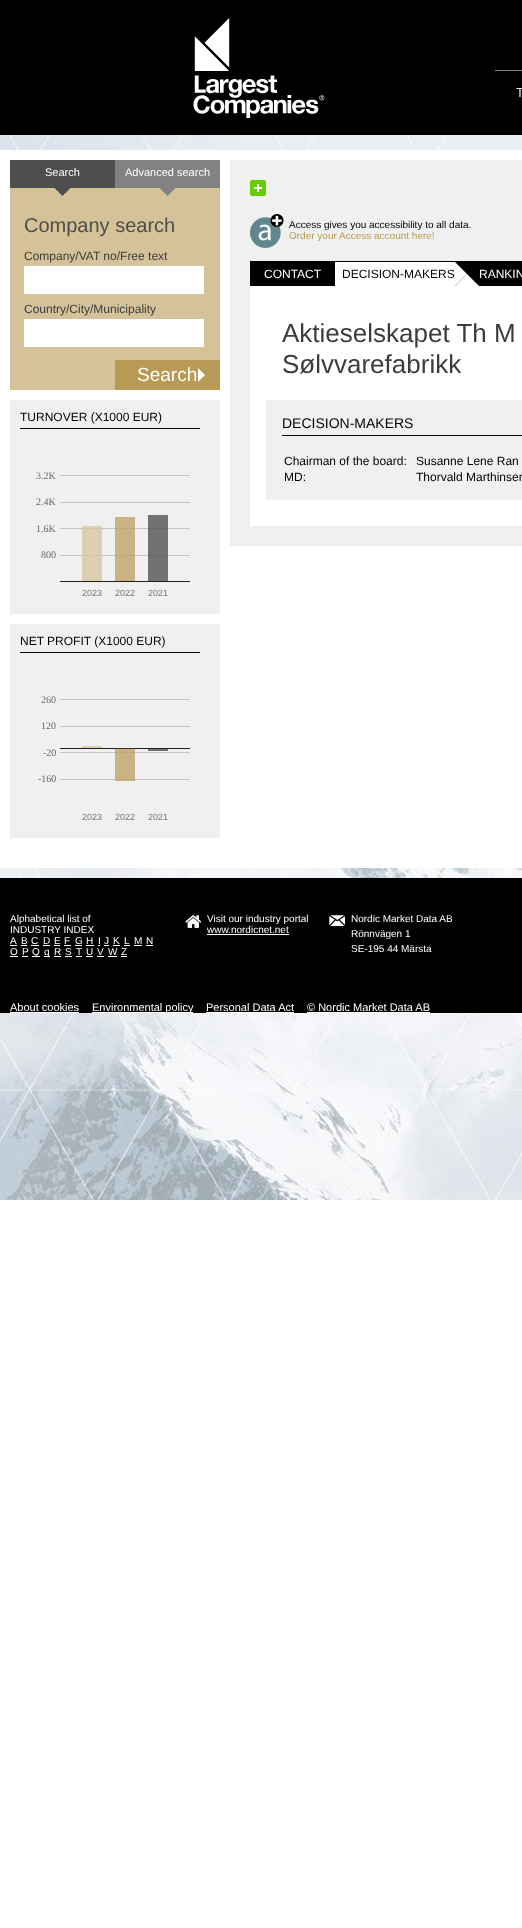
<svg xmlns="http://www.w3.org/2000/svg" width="522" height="1928">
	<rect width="100%" height="100%" fill="#FFFFFF" />
	<image x="0" y="135" width="522" height="1065" href="assets/img1.png" />
	<rect x="0" y="0" width="522" height="135" fill="#000000" />
	<image x="193" y="18" width="132" height="100" href="assets/img2.png" />
	<rect x="495" y="70" width="27" height="1" fill="#808080" />
	<text x="516" y="97" font-family="Liberation Sans" font-size="13" fill="#E6E6E6">T</text>
	<rect x="0" y="150" width="522" height="718" fill="#FFFFFF" />
	<rect x="10" y="188" width="210" height="202" fill="#D5C299" />
	<rect x="10" y="160" width="105" height="28" fill="#4E4E4E" />
	<path d="M72 186.5L62.5 196L53 186.5" fill="#4E4E4E" />
	<text x="45" y="176" font-family="Liberation Sans" font-size="11" fill="#FFFFFF">Search</text>
	<rect x="115" y="160" width="105" height="28" fill="#828281" />
	<path d="M158 186.5L167.5 177L177 186.5L167.5 196Z" fill="#828281" />
	<text x="125" y="176" font-family="Liberation Sans" font-size="11" fill="#FFFFFF">Advanced search</text>
	<text x="24" y="232" font-family="Liberation Sans" font-size="20" fill="#4D4D4C">Company search</text>
	<text x="24" y="260" font-family="Liberation Sans" font-size="12" fill="#3C3C3C">Company/VAT no/Free text</text>
	<rect x="24" y="266" width="180" height="28" fill="#FFFFFF" />
	<text x="24" y="313" font-family="Liberation Sans" font-size="12" fill="#3C3C3C">Country/City/Municipality</text>
	<rect x="24" y="319" width="180" height="28" fill="#FFFFFF" />
	<rect x="115" y="360" width="105" height="30" fill="#B99A55" />
	<path d="M205 375L198 368V382Z" fill="#FFFFFF" />
	<text x="137" y="381" font-family="Liberation Sans" font-size="19" fill="#FFFFFF">Search</text>
	<rect x="10" y="400" width="210" height="214" fill="#F0F0F0" />
	<rect x="20" y="428" width="180" height="1" fill="#000000" />
	<text x="20" y="421" font-family="Liberation Sans" font-size="12" fill="#000000">TURNOVER (X1000 EUR)</text>
	<text x="36" y="479" font-family="Liberation Serif" font-size="10" fill="#686868">3.2K</text>
	<rect x="60" y="475" width="130" height="1" fill="#C3C3C3" />
	<text x="36" y="505" font-family="Liberation Serif" font-size="10" fill="#686868">2.4K</text>
	<rect x="60" y="502" width="130" height="1" fill="#C3C3C3" />
	<text x="36" y="532" font-family="Liberation Serif" font-size="10" fill="#686868">1.6K</text>
	<rect x="60" y="528" width="130" height="1" fill="#C3C3C3" />
	<text x="41" y="558" font-family="Liberation Serif" font-size="10" fill="#686868">800</text>
	<rect x="60" y="555" width="130" height="1" fill="#C3C3C3" />
	<rect x="82" y="526" width="20" height="55" fill="#D8C8A3" fill-opacity="0.8" />
	<rect x="115" y="517" width="20" height="64" fill="#C0A468" fill-opacity="0.8" />
	<text x="82" y="596" font-family="Liberation Sans" font-size="9" fill="#777777">2023</text>
	<rect x="60" y="581" width="130" height="1" fill="#1F1F1F" />
	<g font-family="Liberation Sans" font-size="9" fill="#777777">
		<text x="115" y="596">2022</text>
		<text x="148" y="596">2021</text>
	</g>
	<rect x="148" y="515" width="20" height="66" fill="#525252" fill-opacity="0.8" />
	<rect x="10" y="624" width="210" height="214" fill="#F0F0F0" />
	<rect x="20" y="652" width="180" height="1" fill="#000000" />
	<text x="20" y="645" font-family="Liberation Sans" font-size="12" fill="#000000">NET PROFIT (X1000 EUR)</text>
	<text x="41" y="703" font-family="Liberation Serif" font-size="10" fill="#686868">260</text>
	<rect x="60" y="699" width="130" height="1" fill="#C3C3C3" />
	<text x="41" y="729" font-family="Liberation Serif" font-size="10" fill="#686868">120</text>
	<rect x="60" y="726" width="130" height="1" fill="#C3C3C3" />
	<text x="43" y="756" font-family="Liberation Serif" font-size="10" fill="#686868">-20</text>
	<rect x="60" y="752" width="130" height="1" fill="#C3C3C3" />
	<rect x="60" y="748" width="130" height="1" fill="#1F1F1F" />
	<rect x="82" y="746" width="20" height="2" fill="#DDD0B2" />
	<rect x="60" y="779" width="130" height="1" fill="#C3C3C3" />
	<rect x="115" y="748" width="20" height="33" fill="#C0A468" fill-opacity="0.8" />
	<rect x="148" y="748" width="20" height="3" fill="#525252" fill-opacity="0.8" />
	<rect x="115" y="748" width="53" height="1" fill="#1D1D1D" fill-opacity="0.8" />
	<text x="38" y="782" font-family="Liberation Serif" font-size="10" fill="#686868">-160</text>
	<g font-family="Liberation Sans" font-size="9" fill="#777777">
		<text x="82" y="820">2023</text>
		<text x="115" y="820">2022</text>
		<text x="148" y="820">2021</text>
	</g>
	<rect x="230" y="160" width="292" height="386" fill="#F0F0F0" />
	<image x="250" y="180" width="16" height="16" href="assets/img3.png" />
	<image x="250" y="214" width="34" height="34" href="assets/img4.png" />
	<text x="289" y="228" font-family="Liberation Sans" font-size="10" fill="#000000">Access gives you accessibility to all data.</text>
	<text x="289" y="239" font-family="Liberation Sans" font-size="10" fill="#B99A55">Order your Access account here!</text>
	<rect x="250" y="286" width="272" height="240" fill="#FFFFFF" />
	<rect x="250" y="261" width="272" height="25" fill="#000000" />
	<text x="264" y="278" font-family="Liberation Sans" font-size="12" fill="#FFFFFF">CONTACT</text>
	<rect x="335" y="262" width="120" height="24" fill="#FFFFFF" />
	<text x="342" y="278" font-family="Liberation Sans" font-size="12" fill="#000000">DECISION-MAKERS</text>
	<path d="M479 286H455L467 274Z" fill="#FFFFFF" />
	<path d="M455 286V262L467 274Z" fill="#FFFFFF" />
	<text x="479" y="278" font-family="Liberation Sans" font-size="12" fill="#FFFFFF">RANKIN</text>
	<g font-family="Liberation Sans" font-size="26" fill="#3C3C3C">
		<text x="282" y="342">Aktieselskapet Th M</text>
		<text x="282" y="373">Sølvvarefabrikk</text>
	</g>
	<rect x="266" y="400" width="256" height="100" fill="#F0F0F0" />
	<rect x="282" y="435" width="240" height="1" fill="#000000" />
	<text x="282" y="428" font-family="Liberation Sans" font-size="14" fill="#000000">DECISION-MAKERS</text>
	<g font-family="Liberation Sans" font-size="12" fill="#000000">
		<text x="284" y="465">Chairman of the board:</text>
		<text x="416" y="465">Susanne Lene Ran</text>
		<text x="284" y="481">MD:</text>
		<text x="416" y="481">Thorvald Marthinsen</text>
	</g>
	<rect x="0" y="878" width="522" height="135" fill="#000000" />
	<g font-family="Liberation Sans" font-size="10" fill="#FFFFFF">
		<text x="10" y="922">Alphabetical list of</text>
		<text x="10" y="933">INDUSTRY INDEX</text>
		<text x="10" y="944">A</text>
	</g>
	<rect x="10" y="945" width="7" height="1" fill="#FFFFFF" />
	<text x="21" y="944" font-family="Liberation Sans" font-size="10" fill="#FFFFFF">B</text>
	<rect x="21" y="945" width="6" height="1" fill="#FFFFFF" />
	<text x="31" y="944" font-family="Liberation Sans" font-size="10" fill="#FFFFFF">C</text>
	<rect x="31" y="945" width="8" height="1" fill="#FFFFFF" />
	<text x="43" y="944" font-family="Liberation Sans" font-size="10" fill="#FFFFFF">D</text>
	<rect x="43" y="945" width="7" height="1" fill="#FFFFFF" />
	<text x="54" y="944" font-family="Liberation Sans" font-size="10" fill="#FFFFFF">E</text>
	<rect x="54" y="945" width="6" height="1" fill="#FFFFFF" />
	<text x="64" y="944" font-family="Liberation Sans" font-size="10" fill="#FFFFFF">F</text>
	<rect x="64" y="945" width="7" height="1" fill="#FFFFFF" />
	<text x="75" y="944" font-family="Liberation Sans" font-size="10" fill="#FFFFFF">G</text>
	<rect x="75" y="945" width="7" height="1" fill="#FFFFFF" />
	<text x="86" y="944" font-family="Liberation Sans" font-size="10" fill="#FFFFFF">H</text>
	<rect x="86" y="945" width="8" height="1" fill="#FFFFFF" />
	<text x="98" y="944" font-family="Liberation Sans" font-size="10" fill="#FFFFFF">I</text>
	<rect x="98" y="945" width="2" height="1" fill="#FFFFFF" />
	<text x="104" y="944" font-family="Liberation Sans" font-size="10" fill="#FFFFFF">J</text>
	<rect x="104" y="945" width="5" height="1" fill="#FFFFFF" />
	<text x="113" y="944" font-family="Liberation Sans" font-size="10" fill="#FFFFFF">K</text>
	<rect x="113" y="945" width="7" height="1" fill="#FFFFFF" />
	<text x="124" y="944" font-family="Liberation Sans" font-size="10" fill="#FFFFFF">L</text>
	<rect x="124" y="945" width="6" height="1" fill="#FFFFFF" />
	<text x="134" y="944" font-family="Liberation Sans" font-size="10" fill="#FFFFFF">M</text>
	<rect x="134" y="945" width="8" height="1" fill="#FFFFFF" />
	<text x="146" y="944" font-family="Liberation Sans" font-size="10" fill="#FFFFFF">N</text>
	<rect x="146" y="945" width="7" height="1" fill="#FFFFFF" />
	<text x="10" y="955" font-family="Liberation Sans" font-size="10" fill="#FFFFFF">O</text>
	<rect x="10" y="956" width="8" height="1" fill="#FFFFFF" />
	<text x="22" y="955" font-family="Liberation Sans" font-size="10" fill="#FFFFFF">P</text>
	<rect x="22" y="956" width="6" height="1" fill="#FFFFFF" />
	<rect x="32" y="956" width="8" height="1" fill="#FFFFFF" />
	<text x="32" y="955" font-family="Liberation Sans" font-size="10" fill="#FFFFFF">Q</text>
	<rect x="44" y="956" width="6" height="1" fill="#FFFFFF" />
	<g font-family="Liberation Sans" font-size="10" fill="#FFFFFF">
		<text x="44" y="955">q</text>
		<text x="54" y="955">R</text>
	</g>
	<rect x="54" y="956" width="7" height="1" fill="#FFFFFF" />
	<text x="65" y="955" font-family="Liberation Sans" font-size="10" fill="#FFFFFF">S</text>
	<rect x="65" y="956" width="7" height="1" fill="#FFFFFF" />
	<text x="76" y="955" font-family="Liberation Sans" font-size="10" fill="#FFFFFF">T</text>
	<rect x="76" y="956" width="6" height="1" fill="#FFFFFF" />
	<text x="86" y="955" font-family="Liberation Sans" font-size="10" fill="#FFFFFF">U</text>
	<rect x="86" y="956" width="7" height="1" fill="#FFFFFF" />
	<text x="97" y="955" font-family="Liberation Sans" font-size="10" fill="#FFFFFF">V</text>
	<rect x="97" y="956" width="7" height="1" fill="#FFFFFF" />
	<text x="108" y="955" font-family="Liberation Sans" font-size="10" fill="#FFFFFF">W</text>
	<rect x="108" y="956" width="9" height="1" fill="#FFFFFF" />
	<text x="121" y="955" font-family="Liberation Sans" font-size="10" fill="#FFFFFF">Z</text>
	<rect x="121" y="956" width="6" height="1" fill="#FFFFFF" />
	<image x="185" y="915" width="16" height="13" href="assets/img5.png" />
	<g font-family="Liberation Sans" font-size="10" fill="#FFFFFF">
		<text x="207" y="922">Visit our industry portal</text>
		<text x="207" y="933">www.nordicnet.net</text>
	</g>
	<rect x="207" y="934" width="82" height="1" fill="#FFFFFF" />
	<image x="329" y="915" width="16" height="11" href="assets/img6.png" />
	<g font-family="Liberation Sans" font-size="10" fill="#FFFFFF">
		<text x="351" y="922">Nordic Market Data AB</text>
		<text x="351" y="937">Rönnvägen 1</text>
		<text x="351" y="952">SE-195 44 Märsta</text>
	</g>
	<text x="10" y="1011" font-family="Liberation Sans" font-size="11" fill="#FFFFFF">About cookies</text>
	<rect x="10" y="1012" width="69" height="1" fill="#FFFFFF" />
	<rect x="92" y="1012" width="101" height="1" fill="#FFFFFF" />
	<g font-family="Liberation Sans" font-size="11" fill="#FFFFFF">
		<text x="92" y="1011">Environmental policy</text>
		<text x="206" y="1011">Personal Data Act</text>
	</g>
	<rect x="206" y="1012" width="88" height="1" fill="#FFFFFF" />
	<text x="307" y="1011" font-family="Liberation Sans" font-size="11" fill="#FFFFFF">© Nordic Market Data AB</text>
	<rect x="307" y="1012" width="123" height="1" fill="#FFFFFF" />
</svg>
